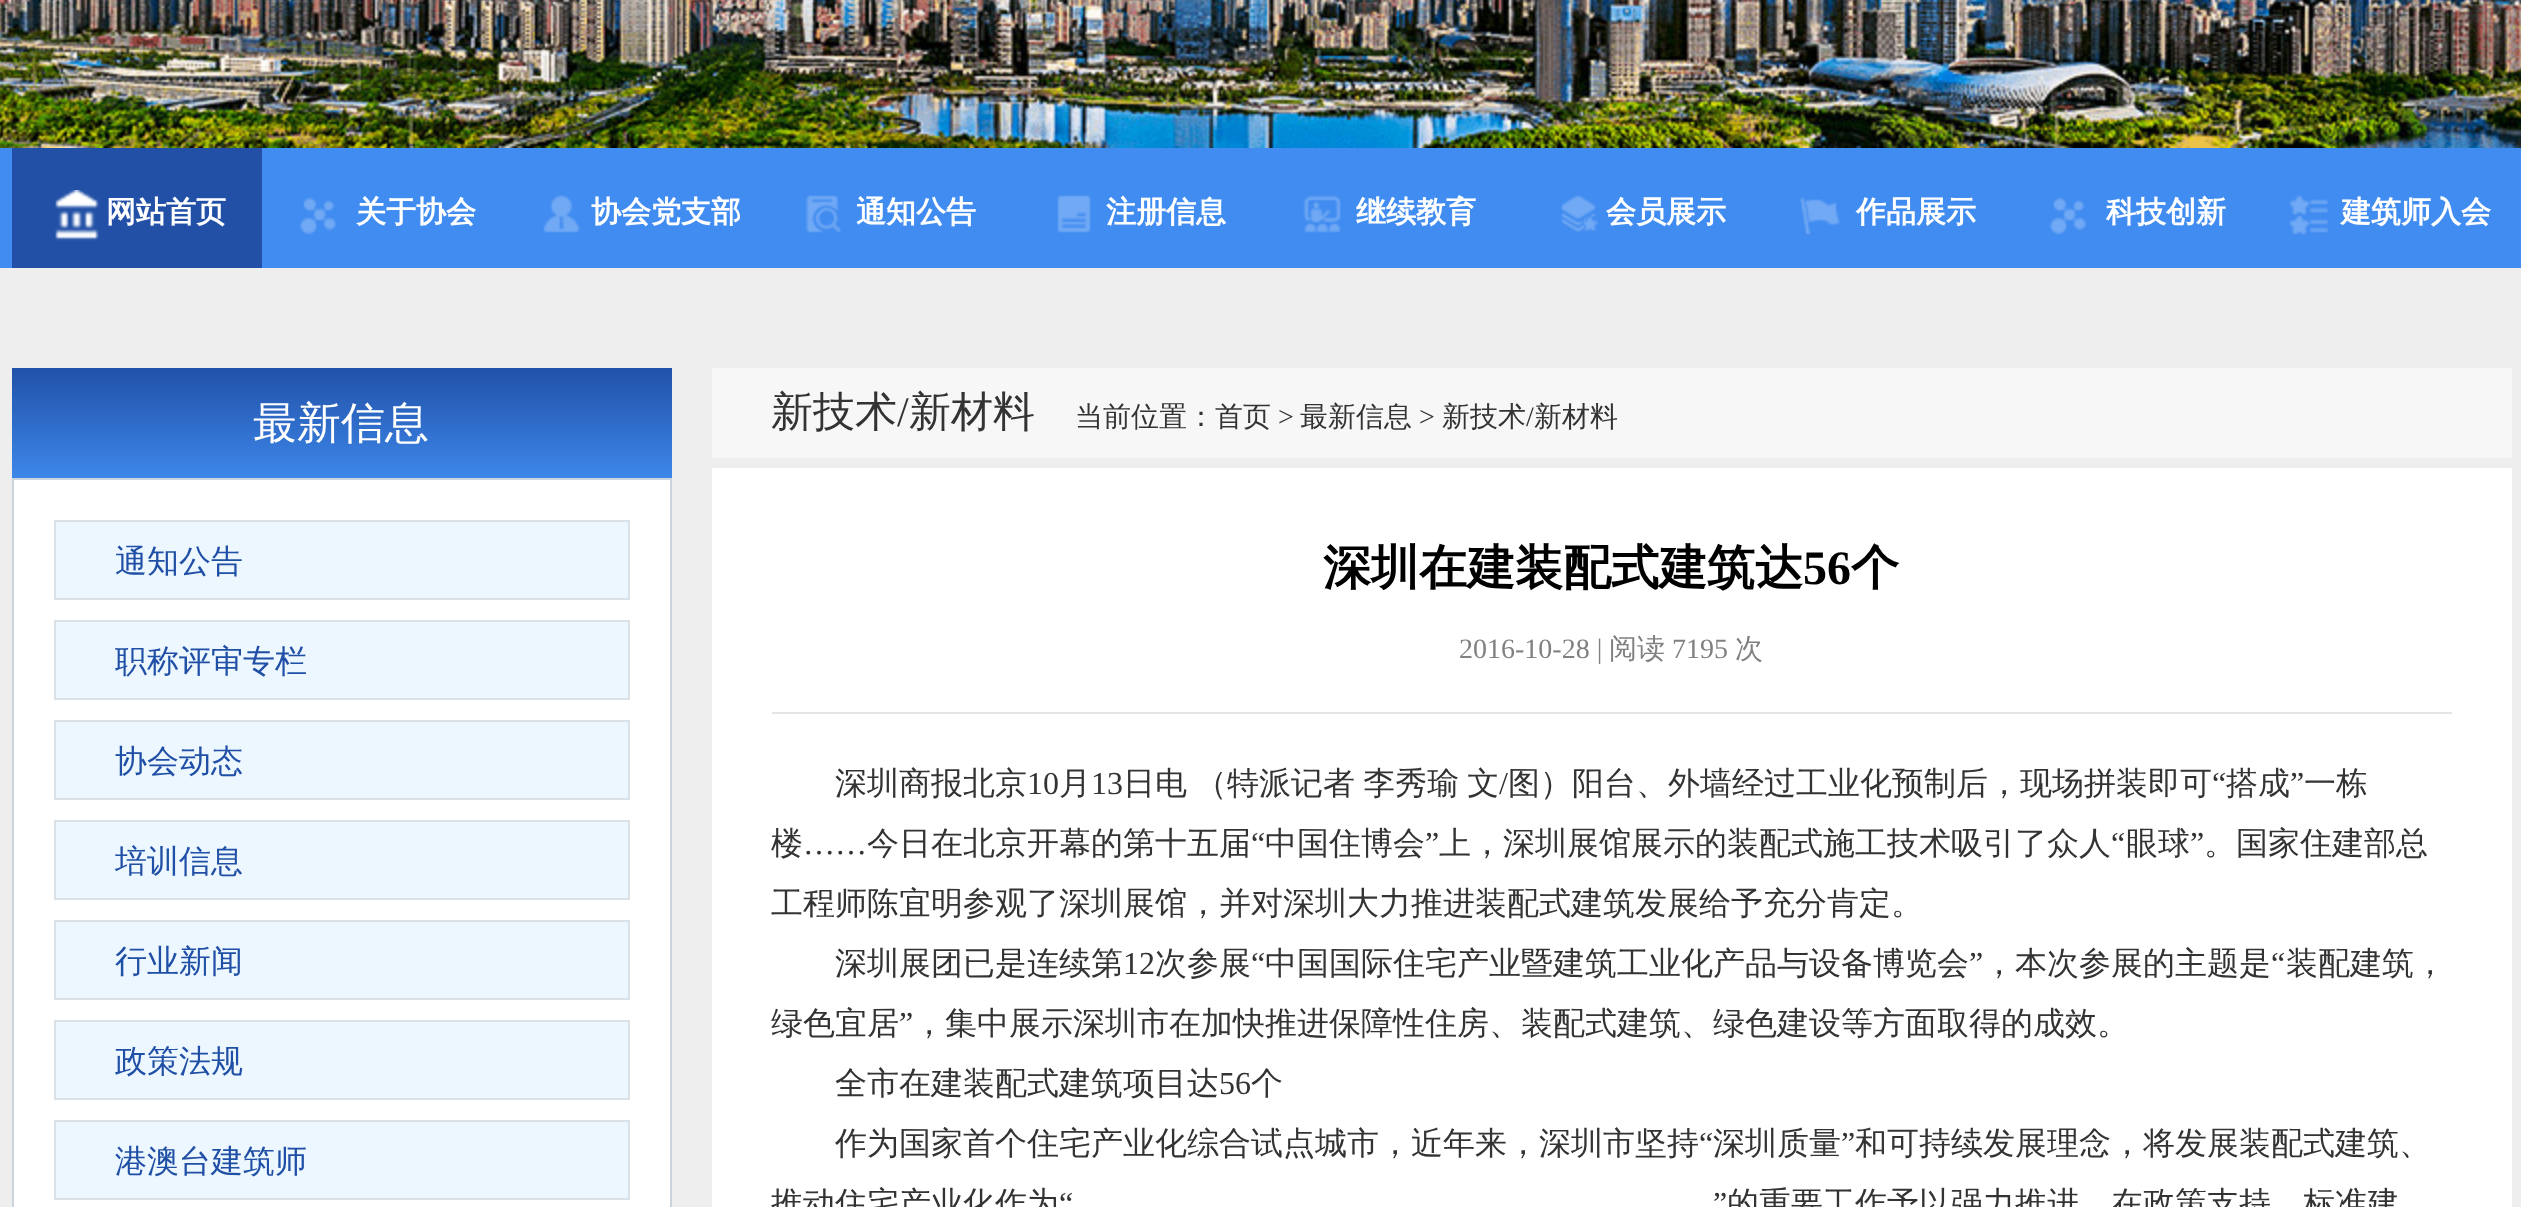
<svg xmlns="http://www.w3.org/2000/svg" width="2521" height="1207">
	<defs>
		<linearGradient id="g1" gradientUnits="userSpaceOnUse" x1="342" y1="368" x2="342" y2="478"><stop offset="0" stop-color="#2151A8" /><stop offset="1" stop-color="#3D87E9" /></linearGradient>
	</defs>
	<rect width="100%" height="100%" fill="#EEEEEE" />
	<image x="0" y="0" width="2521" height="148" href="assets/img1.png" />
	<rect x="0" y="148" width="2521" height="120" fill="#418CF0" />
	<rect x="12" y="148" width="250" height="120" fill="#2150A6" />
	<image x="55" y="190" width="44" height="51" href="assets/img2.png" />
	<text x="106" y="222" font-family="WenQuanYi Zen Hei" font-size="30" font-weight="700" fill="#FFFFFF">网站首页</text>
	<image x="299" y="197" width="38" height="38" href="assets/img3.png" />
	<text x="356" y="222" font-family="WenQuanYi Zen Hei" font-size="30" font-weight="700" fill="#FFFFFF">关于协会</text>
	<image x="543" y="195" width="38" height="38" href="assets/img4.png" />
	<text x="591" y="222" font-family="WenQuanYi Zen Hei" font-size="30" font-weight="700" fill="#FFFFFF">协会党支部</text>
	<image x="805" y="195" width="36" height="38" href="assets/img5.png" />
	<text x="856" y="222" font-family="WenQuanYi Zen Hei" font-size="30" font-weight="700" fill="#FFFFFF">通知公告</text>
	<image x="1057" y="195" width="34" height="38" href="assets/img6.png" />
	<text x="1106" y="222" font-family="WenQuanYi Zen Hei" font-size="30" font-weight="700" fill="#FFFFFF">注册信息</text>
	<image x="1303" y="195" width="38" height="38" href="assets/img7.png" />
	<text x="1356" y="222" font-family="WenQuanYi Zen Hei" font-size="30" font-weight="700" fill="#FFFFFF">继续教育</text>
	<image x="1561" y="195" width="38" height="38" href="assets/img8.png" />
	<text x="1606" y="222" font-family="WenQuanYi Zen Hei" font-size="30" font-weight="700" fill="#FFFFFF">会员展示</text>
	<image x="1799" y="197" width="42" height="38" href="assets/img9.png" />
	<text x="1856" y="222" font-family="WenQuanYi Zen Hei" font-size="30" font-weight="700" fill="#FFFFFF">作品展示</text>
	<image x="2049" y="197" width="38" height="38" href="assets/img3.png" />
	<text x="2106" y="222" font-family="WenQuanYi Zen Hei" font-size="30" font-weight="700" fill="#FFFFFF">科技创新</text>
	<image x="2289" y="195" width="40" height="40" href="assets/img10.png" />
	<text x="2341" y="222" font-family="WenQuanYi Zen Hei" font-size="30" font-weight="700" fill="#FFFFFF">建筑师入会</text>
	<rect x="14" y="468" width="2498" height="739" fill="#FFFFFF" />
	<rect x="12" y="368" width="660" height="110" fill="url(#g1)" />
	<text x="253" y="438" font-family="WenQuanYi Zen Hei" font-size="44" font-weight="500" fill="#FFFFFF">最新信息</text>
	<rect x="13" y="479" width="658" height="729" fill="none" stroke="#CBD4DD" stroke-width="2" />
	<rect x="55" y="521" width="574" height="78" fill="#EDF7FF" stroke="#DAE1E7" stroke-width="2" />
	<text x="115" y="572" font-family="WenQuanYi Zen Hei" font-size="32" font-weight="500" fill="#204FA6">通知公告</text>
	<rect x="55" y="621" width="574" height="78" fill="#EDF7FF" stroke="#DAE1E7" stroke-width="2" />
	<text x="115" y="672" font-family="WenQuanYi Zen Hei" font-size="32" font-weight="500" fill="#204FA6">职称评审专栏</text>
	<rect x="55" y="721" width="574" height="78" fill="#EDF7FF" stroke="#DAE1E7" stroke-width="2" />
	<text x="115" y="772" font-family="WenQuanYi Zen Hei" font-size="32" font-weight="500" fill="#204FA6">协会动态</text>
	<rect x="55" y="821" width="574" height="78" fill="#EDF7FF" stroke="#DAE1E7" stroke-width="2" />
	<text x="115" y="872" font-family="WenQuanYi Zen Hei" font-size="32" font-weight="500" fill="#204FA6">培训信息</text>
	<rect x="55" y="921" width="574" height="78" fill="#EDF7FF" stroke="#DAE1E7" stroke-width="2" />
	<text x="115" y="972" font-family="WenQuanYi Zen Hei" font-size="32" font-weight="500" fill="#204FA6">行业新闻</text>
	<rect x="55" y="1021" width="574" height="78" fill="#EDF7FF" stroke="#DAE1E7" stroke-width="2" />
	<text x="115" y="1072" font-family="WenQuanYi Zen Hei" font-size="32" font-weight="500" fill="#204FA6">政策法规</text>
	<rect x="55" y="1121" width="574" height="78" fill="#EDF7FF" stroke="#DAE1E7" stroke-width="2" />
	<text x="115" y="1172" font-family="WenQuanYi Zen Hei" font-size="32" font-weight="500" fill="#204FA6">港澳台建筑师</text>
	<rect x="672" y="468" width="40" height="739" fill="#EEEEEE" />
	<rect x="712" y="368" width="1800" height="90" fill="#F7F7F7" />
	<text x="771" y="426" font-family="WenQuanYi Zen Hei" font-size="42" font-weight="500" fill="#333333">新技术</text>
	<text x="897" y="426" font-family="Liberation Serif" font-size="42" fill="#333333">/</text>
	<text x="909" y="426" font-family="WenQuanYi Zen Hei" font-size="42" font-weight="500" fill="#333333">新材料</text>
	<text x="1075" y="426" font-family="WenQuanYi Zen Hei" font-size="28" font-weight="500" fill="#333333">当前位置：首页</text>
	<text x="1278" y="426" font-family="Liberation Serif" font-size="28" fill="#333333">&gt;</text>
	<text x="1300" y="426" font-family="WenQuanYi Zen Hei" font-size="28" font-weight="500" fill="#333333">最新信息</text>
	<text x="1419" y="426" font-family="Liberation Serif" font-size="28" fill="#333333">&gt;</text>
	<text x="1442" y="426" font-family="WenQuanYi Zen Hei" font-size="28" font-weight="500" fill="#333333">新技术</text>
	<text x="1526" y="426" font-family="Liberation Serif" font-size="28" fill="#333333">/</text>
	<text x="1534" y="426" font-family="WenQuanYi Zen Hei" font-size="28" font-weight="500" fill="#333333">新材料</text>
	<text x="1323" y="584" font-family="WenQuanYi Zen Hei" font-size="48" font-weight="700" fill="#000000">深圳在建装配式建筑达</text>
	<text x="1803" y="584" font-family="Liberation Serif" font-size="48" font-weight="700" fill="#000000">56</text>
	<text x="1851" y="584" font-family="WenQuanYi Zen Hei" font-size="48" font-weight="700" fill="#000000">个</text>
	<text x="1459" y="658" font-family="Liberation Serif" font-size="28" fill="#808080">2016-10-28 |</text>
	<text x="1609" y="658" font-family="WenQuanYi Zen Hei" font-size="28" font-weight="500" fill="#808080">阅读</text>
	<text x="1672" y="658" font-family="Liberation Serif" font-size="28" fill="#808080">7195</text>
	<text x="1735" y="658" font-family="WenQuanYi Zen Hei" font-size="28" font-weight="500" fill="#808080">次</text>
	<rect x="772" y="712" width="1680" height="2" fill="#E5E5E5" />
	<text x="835" y="794" font-family="WenQuanYi Zen Hei" font-size="32" font-weight="500" fill="#333333">深圳商报北京</text>
	<text x="1027" y="794" font-family="Liberation Serif" font-size="32" fill="#333333">10</text>
	<text x="1059" y="794" font-family="WenQuanYi Zen Hei" font-size="32" font-weight="500" fill="#333333">月</text>
	<text x="1091" y="794" font-family="Liberation Serif" font-size="32" fill="#333333">13</text>
	<text x="1123" y="794" word-spacing="-1.5" font-family="WenQuanYi Zen Hei" font-size="32" font-weight="500" fill="#333333">日电 （特派记者 李秀瑜 文</text>
	<text x="1499" y="794" font-family="Liberation Serif" font-size="32" fill="#333333">/</text>
	<text x="1508" y="794" font-family="WenQuanYi Zen Hei" font-size="32" font-weight="500" fill="#333333">图）阳台、外墙经过工业化预制后，现场拼装即可</text>
	<text x="2212" y="794" font-family="Liberation Serif" font-size="32" fill="#333333">“</text>
	<text x="2226" y="794" font-family="WenQuanYi Zen Hei" font-size="32" font-weight="500" fill="#333333">搭成</text>
	<text x="2290" y="794" font-family="Liberation Serif" font-size="32" fill="#333333">”</text>
	<g font-family="WenQuanYi Zen Hei" font-size="32" font-weight="500" fill="#333333">
		<text x="2304" y="794">一栋</text>
		<text x="771" y="854">楼</text>
		<text x="867" y="854">今日在北京开幕的第十五届</text>
	</g>
	<text x="1251" y="854" font-family="Liberation Serif" font-size="32" fill="#333333">“</text>
	<text x="1265" y="854" font-family="WenQuanYi Zen Hei" font-size="32" font-weight="500" fill="#333333">中国住博会</text>
	<text x="1425" y="854" font-family="Liberation Serif" font-size="32" fill="#333333">”</text>
	<text x="1439" y="854" font-family="WenQuanYi Zen Hei" font-size="32" font-weight="500" fill="#333333">上，深圳展馆展示的装配式施工技术吸引了众人</text>
	<text x="2111" y="854" font-family="Liberation Serif" font-size="32" fill="#333333">“</text>
	<text x="2126" y="854" font-family="WenQuanYi Zen Hei" font-size="32" font-weight="500" fill="#333333">眼球</text>
	<text x="2190" y="854" font-family="Liberation Serif" font-size="32" fill="#333333">”</text>
	<text x="2204" y="854" font-family="WenQuanYi Zen Hei" font-size="32" font-weight="500" fill="#333333">。国家住建部总</text>
	<text x="803" y="854" font-family="Liberation Serif" font-size="32" fill="#333333">……</text>
	<g font-family="WenQuanYi Zen Hei" font-size="32" font-weight="500" fill="#333333">
		<text x="771" y="914">工程师陈宜明参观了深圳展馆，并对深圳大力推进装配式建筑发展给予充分肯定。</text>
		<text x="835" y="974">深圳展团已是连续第</text>
	</g>
	<text x="1123" y="974" font-family="Liberation Serif" font-size="32" fill="#333333">12</text>
	<text x="1155" y="974" font-family="WenQuanYi Zen Hei" font-size="32" font-weight="500" fill="#333333">次参展</text>
	<text x="1251" y="974" font-family="Liberation Serif" font-size="32" fill="#333333">“</text>
	<text x="1265" y="974" font-family="WenQuanYi Zen Hei" font-size="32" font-weight="500" fill="#333333">中国国际住宅产业暨建筑工业化产品与设备博览会</text>
	<text x="1969" y="974" font-family="Liberation Serif" font-size="32" fill="#333333">”</text>
	<text x="1983" y="974" font-family="WenQuanYi Zen Hei" font-size="32" font-weight="500" fill="#333333">，本次参展的主题是</text>
	<text x="2271" y="974" font-family="Liberation Serif" font-size="32" fill="#333333">“</text>
	<g font-family="WenQuanYi Zen Hei" font-size="32" font-weight="500" fill="#333333">
		<text x="2286" y="974">装配建筑，</text>
		<text x="771" y="1034">绿色宜居</text>
	</g>
	<text x="899" y="1034" font-family="Liberation Serif" font-size="32" fill="#333333">”</text>
	<g font-family="WenQuanYi Zen Hei" font-size="32" font-weight="500" fill="#333333">
		<text x="913" y="1034">，集中展示深圳市在加快推进保障性住房、装配式建筑、绿色建设等方面取得的成效。</text>
		<text x="835" y="1094">全市在建装配式建筑项目达</text>
	</g>
	<text x="1219" y="1094" font-family="Liberation Serif" font-size="32" fill="#333333">56</text>
	<g font-family="WenQuanYi Zen Hei" font-size="32" font-weight="500" fill="#333333">
		<text x="1251" y="1094">个</text>
		<text x="835" y="1154">作为国家首个住宅产业化综合试点城市，近年来，深圳市坚持</text>
	</g>
	<text x="1699" y="1154" font-family="Liberation Serif" font-size="32" fill="#333333">“</text>
	<text x="1713" y="1154" font-family="WenQuanYi Zen Hei" font-size="32" font-weight="500" fill="#333333">深圳质量</text>
	<text x="1841" y="1154" font-family="Liberation Serif" font-size="32" fill="#333333">”</text>
	<g font-family="WenQuanYi Zen Hei" font-size="32" font-weight="500" fill="#333333">
		<text x="1855" y="1154">和可持续发展理念，将发展装配式建筑、</text>
		<text x="771" y="1214">推动住宅产业化作为</text>
	</g>
	<g font-family="Liberation Serif" font-size="32" fill="#333333">
		<text x="1059" y="1214">“</text>
		<text x="1713" y="1214">”</text>
	</g>
	<text x="1727" y="1214" font-family="WenQuanYi Zen Hei" font-size="32" font-weight="500" fill="#333333">的重要工作予以强力推进，在政策支持、标准建</text>
</svg>
